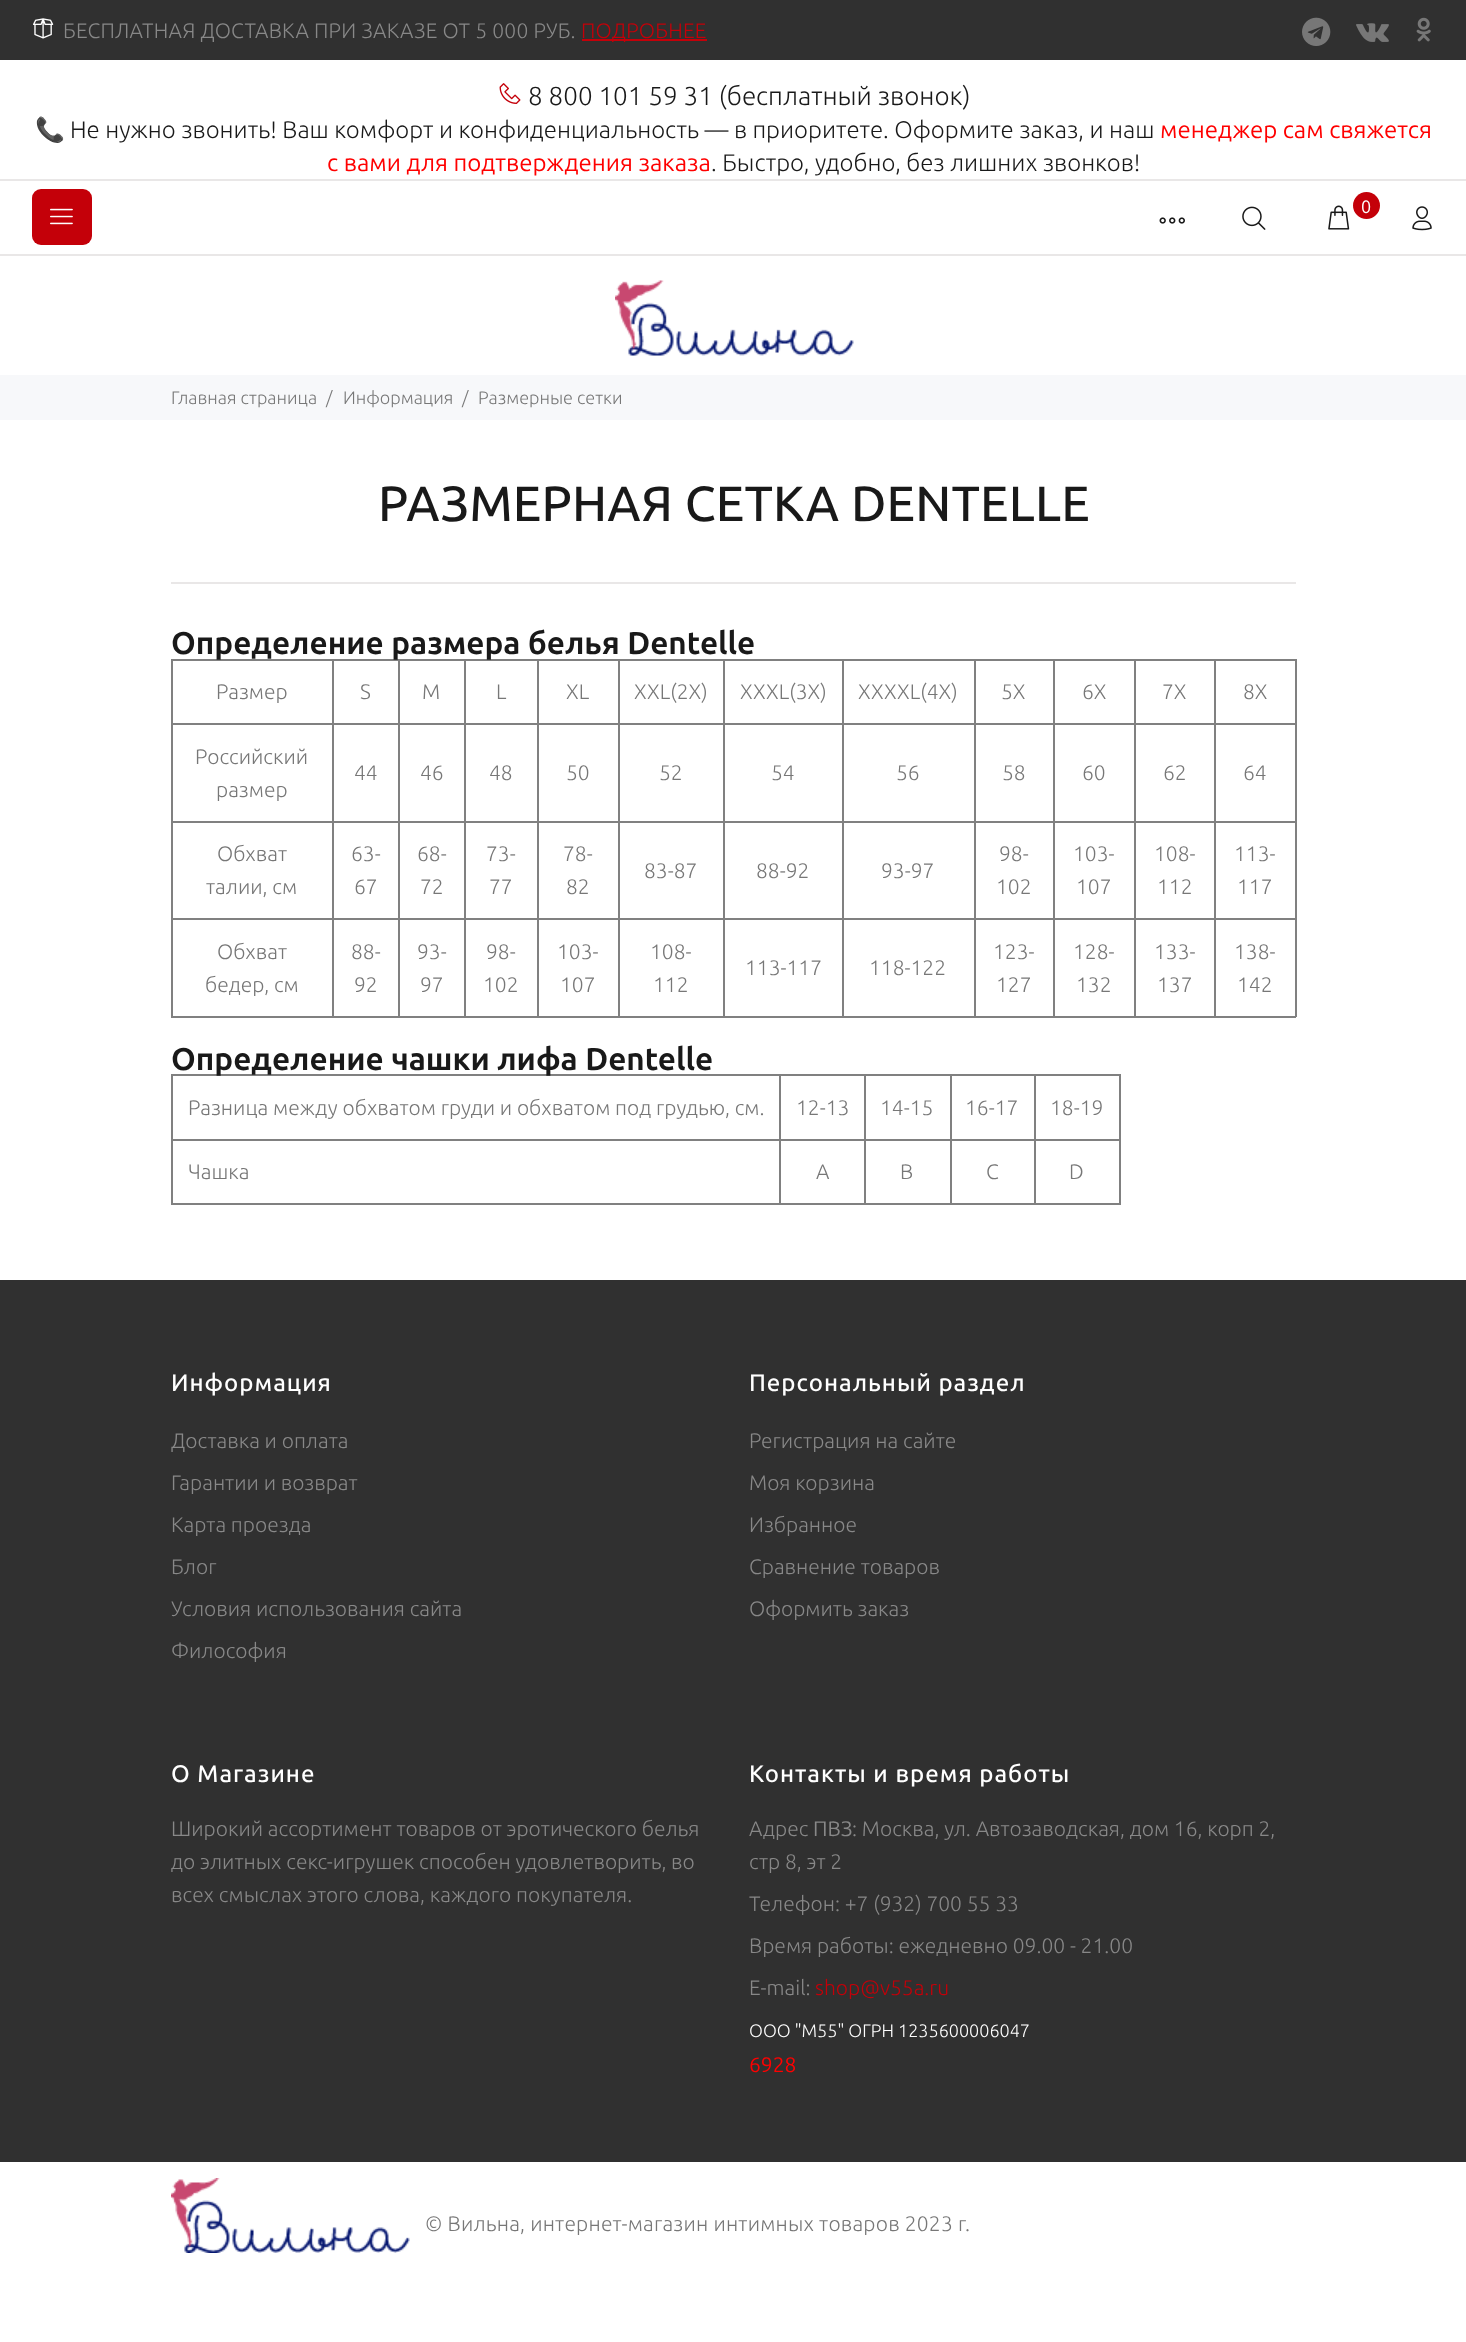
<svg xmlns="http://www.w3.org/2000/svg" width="1466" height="2342">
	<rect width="100%" height="100%" fill="#FFFFFF" />
	<rect x="0" y="0" width="1466" height="60" fill="#303030" />
	<image x="33" y="18" width="21" height="21" href="assets/img1.png" />
	<text x="63" y="38" font-family="Ubuntu" font-size="21" font-weight="300" letter-spacing="0.2" fill="#888888">БЕСПЛАТНАЯ ДОСТАВКА ПРИ ЗАКАЗЕ ОТ 5 000 РУБ.</text>
	<text x="581" y="38" font-family="Ubuntu" font-size="21" font-weight="300" letter-spacing="0.2" fill="#C40009">ПОДРОБНЕЕ</text>
	<rect x="582" y="39" width="125" height="2" fill="#C40009" />
	<image x="1302" y="17" width="29" height="29" href="assets/img2.png" />
	<image x="1356" y="23" width="33" height="19" href="assets/img3.png" />
	<image x="1416" y="17" width="15" height="25" href="assets/img4.png" />
	<image x="499" y="83" width="22" height="21" href="assets/img5.png" />
	<text x="528" y="105" font-family="Ubuntu" font-size="26" font-weight="300" fill="#191919">8 800 101 59 31 (бесплатный звонок)</text>
	<text x="35" y="138" font-family="Noto Color Emoji" font-size="24" fill="#191919">📞</text>
	<text x="70" y="138" font-family="Ubuntu" font-size="24" font-weight="300" fill="#191919">Не нужно звонить! Ваш комфорт и конфиденциальность — в приоритете. Оформите заказ, и наш</text>
	<g font-family="Ubuntu" font-size="24" fill="#FF0000">
		<text x="1160" y="138">менеджер сам свяжется</text>
		<text x="327" y="171">с вами для подтверждения заказа</text>
	</g>
	<text x="711" y="171" font-family="Ubuntu" font-size="24" font-weight="300" fill="#191919">. Быстро, удобно, без лишних звонков!</text>
	<rect x="0" y="179" width="1466" height="2" fill="#E9E7E7" />
	<rect x="32" y="189" width="60" height="56" rx="9" fill="#C40009" />
	<image x="50" y="208" width="23" height="17" href="assets/img6.png" />
	<image x="1159" y="217" width="26" height="7" href="assets/img7.png" />
	<image x="1242" y="206" width="24" height="24" href="assets/img8.png" />
	<image x="1328" y="205" width="22" height="25" href="assets/img9.png" />
	<circle cx="1366.5" cy="205.5" r="13.5" fill="#C40009" />
	<text x="1361" y="213" font-family="Ubuntu" font-size="18" fill="#FFFFFF">0</text>
	<image x="1412" y="206" width="20" height="25" href="assets/img10.png" />
	<rect x="0" y="254" width="1466" height="2" fill="#E9E7E7" />
	<image x="615" y="280" width="239" height="76" href="assets/img11.png" />
	<rect x="0" y="375" width="1466" height="45" fill="#F7F8FA" />
	<g font-family="Ubuntu" font-size="18" font-weight="300" fill="#777777">
		<text x="171" y="404">Главная страница</text>
		<text x="326" y="404">/</text>
		<text x="343" y="404">Информация</text>
		<text x="462" y="404">/</text>
		<text x="478" y="404">Размерные сетки</text>
	</g>
	<rect x="171" y="582" width="1125" height="2" fill="#E9E7E7" />
	<text x="378" y="521" font-family="Ubuntu" font-size="49.5" font-weight="500" letter-spacing="0.15" fill="#191919">РАЗМЕРНАЯ СЕТКА DENTELLE</text>
	<rect x="171" y="659" width="1125" height="2" fill="#808080" />
	<rect x="1295" y="659" width="2" height="358" fill="#808080" />
	<rect x="171" y="1016" width="1125" height="2" fill="#808080" />
	<rect x="171" y="659" width="2" height="358" fill="#808080" />
	<rect x="1214" y="723" width="82" height="2" fill="#808080" />
	<rect x="1214" y="821" width="82" height="2" fill="#808080" />
	<rect x="1214" y="918" width="82" height="2" fill="#808080" />
	<rect x="1214" y="918" width="2" height="99" fill="#808080" />
	<rect x="1134" y="918" width="81" height="2" fill="#808080" />
	<rect x="1214" y="821" width="2" height="99" fill="#808080" />
	<rect x="1134" y="821" width="81" height="2" fill="#808080" />
	<rect x="1214" y="723" width="2" height="99" fill="#808080" />
	<rect x="1134" y="723" width="81" height="2" fill="#808080" />
	<rect x="1134" y="918" width="2" height="99" fill="#808080" />
	<rect x="1053" y="918" width="83" height="2" fill="#808080" />
	<rect x="1134" y="821" width="2" height="99" fill="#808080" />
	<rect x="1053" y="821" width="83" height="2" fill="#808080" />
	<rect x="1134" y="723" width="2" height="99" fill="#808080" />
	<rect x="1053" y="723" width="83" height="2" fill="#808080" />
	<rect x="1053" y="918" width="2" height="99" fill="#808080" />
	<rect x="974" y="918" width="81" height="2" fill="#808080" />
	<rect x="1053" y="821" width="2" height="99" fill="#808080" />
	<rect x="974" y="821" width="81" height="2" fill="#808080" />
	<rect x="1053" y="723" width="2" height="99" fill="#808080" />
	<rect x="974" y="723" width="81" height="2" fill="#808080" />
	<rect x="974" y="918" width="2" height="99" fill="#808080" />
	<rect x="842" y="918" width="133" height="2" fill="#808080" />
	<rect x="974" y="821" width="2" height="99" fill="#808080" />
	<rect x="842" y="821" width="133" height="2" fill="#808080" />
	<rect x="974" y="723" width="2" height="99" fill="#808080" />
	<rect x="842" y="723" width="133" height="2" fill="#808080" />
	<rect x="842" y="918" width="2" height="99" fill="#808080" />
	<rect x="723" y="918" width="120" height="2" fill="#808080" />
	<rect x="842" y="821" width="2" height="99" fill="#808080" />
	<rect x="723" y="821" width="120" height="2" fill="#808080" />
	<rect x="842" y="723" width="2" height="99" fill="#808080" />
	<rect x="723" y="723" width="120" height="2" fill="#808080" />
	<rect x="723" y="918" width="2" height="99" fill="#808080" />
	<rect x="618" y="918" width="107" height="2" fill="#808080" />
	<rect x="723" y="821" width="2" height="99" fill="#808080" />
	<rect x="618" y="821" width="107" height="2" fill="#808080" />
	<rect x="723" y="723" width="2" height="99" fill="#808080" />
	<rect x="618" y="723" width="107" height="2" fill="#808080" />
	<rect x="618" y="918" width="2" height="99" fill="#808080" />
	<rect x="537" y="918" width="83" height="2" fill="#808080" />
	<rect x="618" y="821" width="2" height="99" fill="#808080" />
	<rect x="537" y="821" width="83" height="2" fill="#808080" />
	<rect x="618" y="723" width="2" height="99" fill="#808080" />
	<rect x="537" y="723" width="83" height="2" fill="#808080" />
	<rect x="537" y="918" width="2" height="99" fill="#808080" />
	<rect x="464" y="918" width="75" height="2" fill="#808080" />
	<rect x="537" y="821" width="2" height="99" fill="#808080" />
	<rect x="464" y="821" width="75" height="2" fill="#808080" />
	<rect x="537" y="723" width="2" height="99" fill="#808080" />
	<rect x="464" y="723" width="75" height="2" fill="#808080" />
	<rect x="464" y="918" width="2" height="99" fill="#808080" />
	<rect x="398" y="918" width="67" height="2" fill="#808080" />
	<rect x="464" y="821" width="2" height="99" fill="#808080" />
	<rect x="398" y="821" width="67" height="2" fill="#808080" />
	<rect x="464" y="723" width="2" height="99" fill="#808080" />
	<rect x="398" y="723" width="67" height="2" fill="#808080" />
	<rect x="398" y="918" width="2" height="99" fill="#808080" />
	<rect x="332" y="918" width="67" height="2" fill="#808080" />
	<rect x="398" y="821" width="2" height="99" fill="#808080" />
	<rect x="332" y="821" width="67" height="2" fill="#808080" />
	<rect x="398" y="723" width="2" height="99" fill="#808080" />
	<rect x="332" y="723" width="67" height="2" fill="#808080" />
	<rect x="332" y="918" width="2" height="99" fill="#808080" />
	<rect x="171" y="918" width="162" height="2" fill="#808080" />
	<rect x="332" y="821" width="2" height="99" fill="#808080" />
	<rect x="171" y="821" width="162" height="2" fill="#808080" />
	<rect x="332" y="723" width="2" height="99" fill="#808080" />
	<rect x="171" y="723" width="162" height="2" fill="#808080" />
	<rect x="332" y="659" width="2" height="66" fill="#808080" />
	<rect x="398" y="659" width="2" height="66" fill="#808080" />
	<rect x="464" y="659" width="2" height="66" fill="#808080" />
	<rect x="537" y="659" width="2" height="66" fill="#808080" />
	<rect x="618" y="659" width="2" height="66" fill="#808080" />
	<rect x="723" y="659" width="2" height="66" fill="#808080" />
	<text x="171" y="654" font-family="Ubuntu" font-size="31.5" font-weight="700" fill="#191919">Определение размера белья Dentelle</text>
	<g font-family="Ubuntu" font-size="21" font-weight="300" fill="#777777">
		<text x="216" y="699">Размер</text>
		<text x="360" y="699">S</text>
		<text x="422" y="699">M</text>
		<text x="496" y="699">L</text>
		<text x="566" y="699">XL</text>
		<text x="634" y="699">XXL(2X)</text>
		<text x="740" y="699">XXXL(3X)</text>
	</g>
	<rect x="842" y="659" width="2" height="66" fill="#808080" />
	<text x="858" y="699" font-family="Ubuntu" font-size="21" font-weight="300" fill="#777777">XXXXL(4X)</text>
	<rect x="974" y="659" width="2" height="66" fill="#808080" />
	<text x="1001" y="699" font-family="Ubuntu" font-size="21" font-weight="300" fill="#777777">5X</text>
	<rect x="1053" y="659" width="2" height="66" fill="#808080" />
	<text x="1082" y="699" font-family="Ubuntu" font-size="21" font-weight="300" fill="#777777">6X</text>
	<rect x="1134" y="659" width="2" height="66" fill="#808080" />
	<text x="1162" y="699" font-family="Ubuntu" font-size="21" font-weight="300" fill="#777777">7X</text>
	<rect x="1214" y="659" width="2" height="66" fill="#808080" />
	<g font-family="Ubuntu" font-size="21" font-weight="300" fill="#777777">
		<text x="1243" y="699">8X</text>
		<text x="195" y="764">Российский</text>
		<text x="216" y="797">размер</text>
		<text x="354" y="780">44</text>
		<text x="420" y="780">46</text>
		<text x="489" y="780">48</text>
		<text x="566" y="780">50</text>
		<text x="659" y="780">52</text>
		<text x="771" y="780">54</text>
		<text x="896" y="780">56</text>
		<text x="1002" y="780">58</text>
		<text x="1082" y="780">60</text>
		<text x="1163" y="780">62</text>
		<text x="1243" y="780">64</text>
		<text x="217" y="861">Обхват</text>
		<text x="206" y="894">талии, см</text>
		<text x="351" y="861">63-</text>
		<text x="354" y="894">67</text>
		<text x="417" y="861">68-</text>
		<text x="420" y="894">72</text>
		<text x="486" y="861">73-</text>
		<text x="489" y="894">77</text>
		<text x="563" y="861">78-</text>
		<text x="566" y="894">82</text>
		<text x="644" y="878">83-87</text>
		<text x="756" y="878">88-92</text>
		<text x="881" y="878">93-97</text>
		<text x="999" y="861">98-</text>
		<text x="996" y="894">102</text>
		<text x="1073" y="861">103-</text>
		<text x="1076" y="894">107</text>
		<text x="1154" y="861">108-</text>
		<text x="1157" y="894">112</text>
		<text x="1234" y="861">113-</text>
		<text x="1237" y="894">117</text>
		<text x="217" y="959">Обхват</text>
		<text x="205" y="992">бедер, см</text>
		<text x="351" y="959">88-</text>
		<text x="354" y="992">92</text>
		<text x="417" y="959">93-</text>
		<text x="420" y="992">97</text>
		<text x="486" y="959">98-</text>
		<text x="483" y="992">102</text>
		<text x="557" y="959">103-</text>
		<text x="560" y="992">107</text>
		<text x="650" y="959">108-</text>
		<text x="653" y="992">112</text>
		<text x="745" y="975">113-117</text>
		<text x="869" y="975">118-122</text>
		<text x="993" y="959">123-</text>
		<text x="996" y="992">127</text>
		<text x="1073" y="959">128-</text>
		<text x="1076" y="992">132</text>
		<text x="1154" y="959">133-</text>
		<text x="1157" y="992">137</text>
		<text x="1234" y="959">138-</text>
		<text x="1237" y="992">142</text>
	</g>
	<rect x="171" y="1074" width="950" height="2" fill="#808080" />
	<rect x="1119" y="1074" width="2" height="131" fill="#808080" />
	<rect x="171" y="1203" width="950" height="2" fill="#808080" />
	<rect x="171" y="1074" width="2" height="131" fill="#808080" />
	<text x="171" y="1070" font-family="Ubuntu" font-size="31.5" font-weight="700" fill="#191919">Определение чашки лифа Dentelle</text>
	<text x="188" y="1115" font-family="Ubuntu" font-size="21" font-weight="300" fill="#777777">Разница между обхватом груди и обхватом под грудью, см.</text>
	<rect x="1034" y="1139" width="87" height="2" fill="#808080" />
	<rect x="1034" y="1139" width="2" height="66" fill="#808080" />
	<rect x="950" y="1139" width="85" height="2" fill="#808080" />
	<rect x="950" y="1139" width="2" height="66" fill="#808080" />
	<rect x="864" y="1139" width="87" height="2" fill="#808080" />
	<rect x="864" y="1139" width="2" height="66" fill="#808080" />
	<rect x="779" y="1139" width="87" height="2" fill="#808080" />
	<rect x="779" y="1139" width="2" height="66" fill="#808080" />
	<rect x="171" y="1139" width="609" height="2" fill="#808080" />
	<rect x="779" y="1074" width="2" height="66" fill="#808080" />
	<text x="796" y="1115" font-family="Ubuntu" font-size="21" font-weight="300" fill="#777777">12-13</text>
	<rect x="864" y="1074" width="2" height="66" fill="#808080" />
	<text x="880" y="1115" font-family="Ubuntu" font-size="21" font-weight="300" fill="#777777">14-15</text>
	<rect x="950" y="1074" width="2" height="66" fill="#808080" />
	<text x="965" y="1115" font-family="Ubuntu" font-size="21" font-weight="300" fill="#777777">16-17</text>
	<rect x="1034" y="1074" width="2" height="66" fill="#808080" />
	<g font-family="Ubuntu" font-size="21" font-weight="300" fill="#777777">
		<text x="1050" y="1115">18-19</text>
		<text x="188" y="1179">Чашка</text>
		<text x="816" y="1179">A</text>
		<text x="900" y="1179">B</text>
		<text x="986" y="1179">C</text>
		<text x="1069" y="1179">D</text>
	</g>
	<rect x="0" y="1280" width="1466" height="882" fill="#303030" />
	<text x="171" y="1391" font-family="Ubuntu" font-size="24" font-weight="500" letter-spacing="1" fill="#FFFFFF">Информация</text>
	<g font-family="Ubuntu" font-size="21" font-weight="300" fill="#888888">
		<text x="171" y="1448">Доставка и оплата</text>
		<text x="171" y="1490">Гарантии и возврат</text>
		<text x="171" y="1532">Карта проезда</text>
		<text x="171" y="1574">Блог</text>
		<text x="171" y="1616">Условия использования сайта</text>
		<text x="171" y="1658">Философия</text>
	</g>
	<text x="749" y="1391" font-family="Ubuntu" font-size="24" font-weight="500" letter-spacing="1" fill="#FFFFFF">Персональный раздел</text>
	<g font-family="Ubuntu" font-size="21" font-weight="300" fill="#888888">
		<text x="749" y="1448">Регистрация на сайте</text>
		<text x="749" y="1490">Моя корзина</text>
		<text x="749" y="1532">Избранное</text>
		<text x="749" y="1574">Сравнение товаров</text>
		<text x="749" y="1616">Оформить заказ</text>
	</g>
	<text x="171" y="1782" font-family="Ubuntu" font-size="24" font-weight="500" letter-spacing="1" fill="#FFFFFF">О Магазине</text>
	<g font-family="Ubuntu" font-size="21" font-weight="300" fill="#888888">
		<text x="171" y="1836">Широкий ассортимент товаров от эротического белья</text>
		<text x="171" y="1869">до элитных секс-игрушек способен удовлетворить, во</text>
		<text x="171" y="1902">всех смыслах этого слова, каждого покупателя.</text>
	</g>
	<text x="749" y="1782" font-family="Ubuntu" font-size="24" font-weight="500" letter-spacing="1" fill="#FFFFFF">Контакты и время работы</text>
	<text x="749" y="1836" font-family="Ubuntu" font-size="21" font-weight="300" fill="#888888">Адрес</text>
	<text x="813" y="1836" font-family="Ubuntu" font-size="21" fill="#888888">ПВЗ</text>
	<g font-family="Ubuntu" font-size="21" font-weight="300" fill="#888888">
		<text x="852" y="1836">: Москва, ул. Автозаводская, дом 16, корп 2,</text>
		<text x="749" y="1869">стр 8, эт 2</text>
		<text x="749" y="1911">Телефон: +7 (932) 700 55 33</text>
		<text x="749" y="1953">Время работы: ежедневно 09.00 - 21.00</text>
		<text x="749" y="1995">E-mail:</text>
	</g>
	<text x="815" y="1995" font-family="Ubuntu" font-size="21" font-weight="300" fill="#C40009">shop@v55a.ru</text>
	<text x="749" y="2037" font-family="Ubuntu" font-size="18" font-weight="300" fill="#FFFFFF">ООО "М55" ОГРН 1235600006047</text>
	<text x="749" y="2072" font-family="Ubuntu" font-size="21" fill="#FF0000">6928</text>
	<image x="171" y="2178" width="239" height="75" href="assets/img12.png" />
	<text x="425" y="2231" font-family="Ubuntu" font-size="21" font-weight="300" letter-spacing="0.2" fill="#777777">© Вильна, интернет-магазин интимных товаров 2023 г.</text>
</svg>
